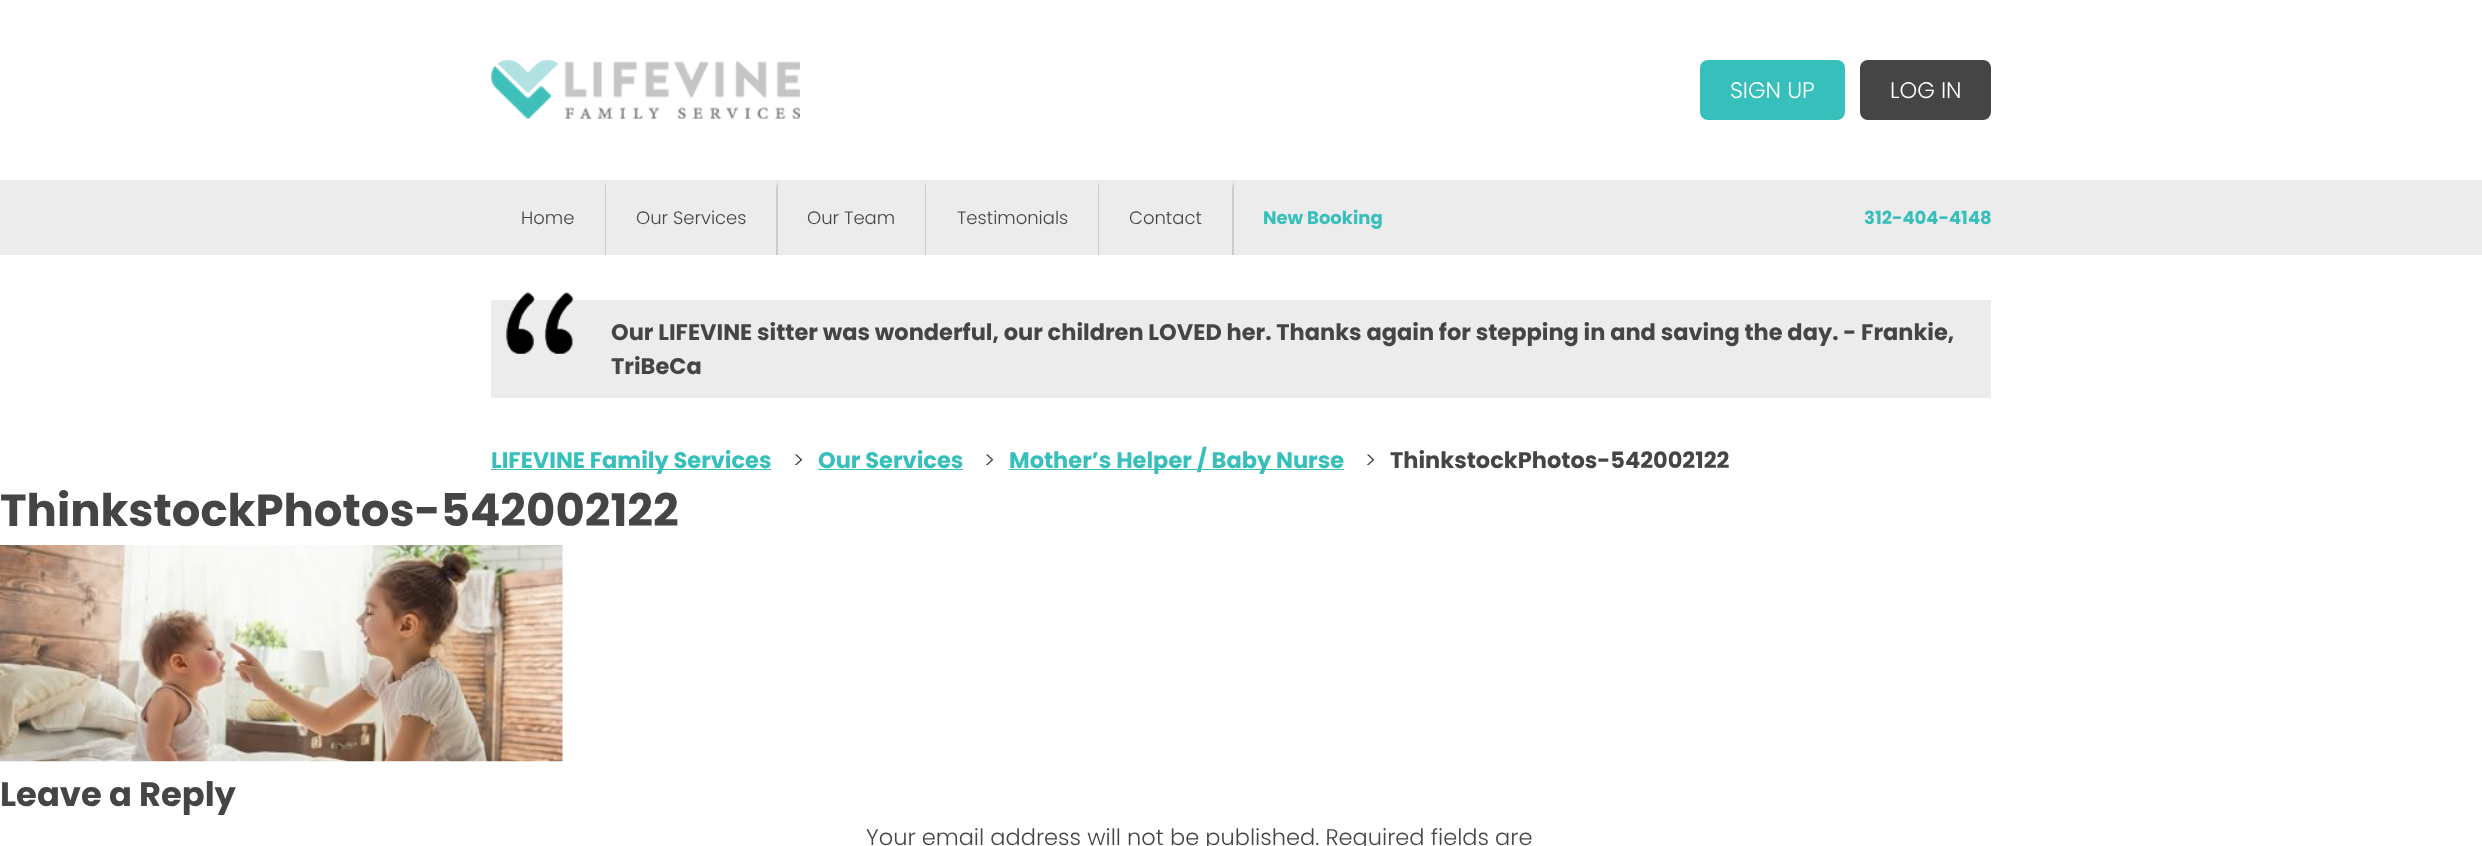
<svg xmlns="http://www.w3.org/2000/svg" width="2482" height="846">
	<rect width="100%" height="100%" fill="#FFFFFF" />
	<image x="491" y="60" width="309" height="59" href="assets/img1.png" />
	<rect x="1700" y="60" width="145" height="60" rx="8" fill="#37BFBB" />
	<text x="1730" y="98" font-family="Poppins" font-size="22.5" font-weight="300" fill="#FFFFFF">SIGN UP</text>
	<rect x="1860" y="60" width="131" height="60" rx="8" fill="#454545" />
	<text x="1890" y="98" font-family="Poppins" font-size="22.5" font-weight="300" fill="#FFFFFF">LOG IN</text>
	<rect x="0" y="180" width="2482" height="75" fill="#ECECEC" />
	<path d="M606 180V255H605V188Z" fill="#CCCCCC" />
	<text x="521" y="224" font-family="Poppins" font-size="18" font-weight="300" fill="#454545">Home</text>
	<path d="M778 180V255H776V188Z" fill="#CCCCCC" />
	<text x="636" y="224" font-family="Poppins" font-size="18" font-weight="300" fill="#454545">Our Services</text>
	<path d="M926 180V255H925V188Z" fill="#CCCCCC" />
	<text x="807" y="224" font-family="Poppins" font-size="18" font-weight="300" fill="#454545">Our Team</text>
	<path d="M1099 180V255H1098V188Z" fill="#CCCCCC" />
	<text x="957" y="224" font-family="Poppins" font-size="18" font-weight="300" fill="#454545">Testimonials</text>
	<path d="M1234 180V255H1232V188Z" fill="#CCCCCC" />
	<text x="1129" y="224" font-family="Poppins" font-size="18" font-weight="300" fill="#454545">Contact</text>
	<g font-family="Poppins" font-size="18" font-weight="700" fill="#37BFBB">
		<text x="1263" y="224">New Booking</text>
		<text x="1864" y="224">312-404-4148</text>
	</g>
	<rect x="491" y="300" width="1500" height="98" fill="#ECECEC" />
	<image x="506" y="292" width="68" height="62" href="assets/img2.png" />
	<g font-family="Poppins" font-size="22.5" font-weight="700" fill="#454545">
		<text x="611" y="340">Our LIFEVINE sitter was wonderful, our children LOVED her. Thanks again for stepping in and saving the day. - Frankie,</text>
		<text x="611" y="374">TriBeCa</text>
	</g>
	<rect x="491" y="469" width="280" height="1" fill="#37BFBB" />
	<text x="491" y="468" font-family="Poppins" font-size="22.5" font-weight="700" fill="#37BFBB">LIFEVINE Family Services</text>
	<text x="793" y="468" font-family="Poppins" font-size="22.5" font-weight="300" fill="#454545">&gt;</text>
	<text x="818" y="468" font-family="Poppins" font-size="22.5" font-weight="700" fill="#37BFBB">Our Services</text>
	<rect x="818" y="469" width="145" height="1" fill="#37BFBB" />
	<text x="984" y="468" font-family="Poppins" font-size="22.5" font-weight="300" fill="#454545">&gt;</text>
	<rect x="1009" y="469" width="335" height="1" fill="#37BFBB" />
	<text x="1009" y="468" font-family="Poppins" font-size="22.5" font-weight="700" fill="#37BFBB">Mother’s Helper / Baby Nurse</text>
	<text x="1365" y="468" font-family="Poppins" font-size="22.5" font-weight="300" fill="#454545">&gt;</text>
	<text x="1390" y="468" font-family="Poppins" font-size="22.5" font-weight="700" fill="#454545">ThinkstockPhotos-542002122</text>
	<text x="0" y="526" font-family="Poppins" font-size="45" font-weight="700" fill="#454545">ThinkstockPhotos-542002122</text>
	<image x="0" y="545" width="563" height="217" href="assets/img3.png" />
	<text x="0" y="806" font-family="Poppins" font-size="33.75" font-weight="700" fill="#454545">Leave a Reply</text>
	<text x="866" y="845" font-family="Poppins" font-size="22.5" font-weight="300" fill="#454545">Your email address will not be published. Required fields are</text>
</svg>
